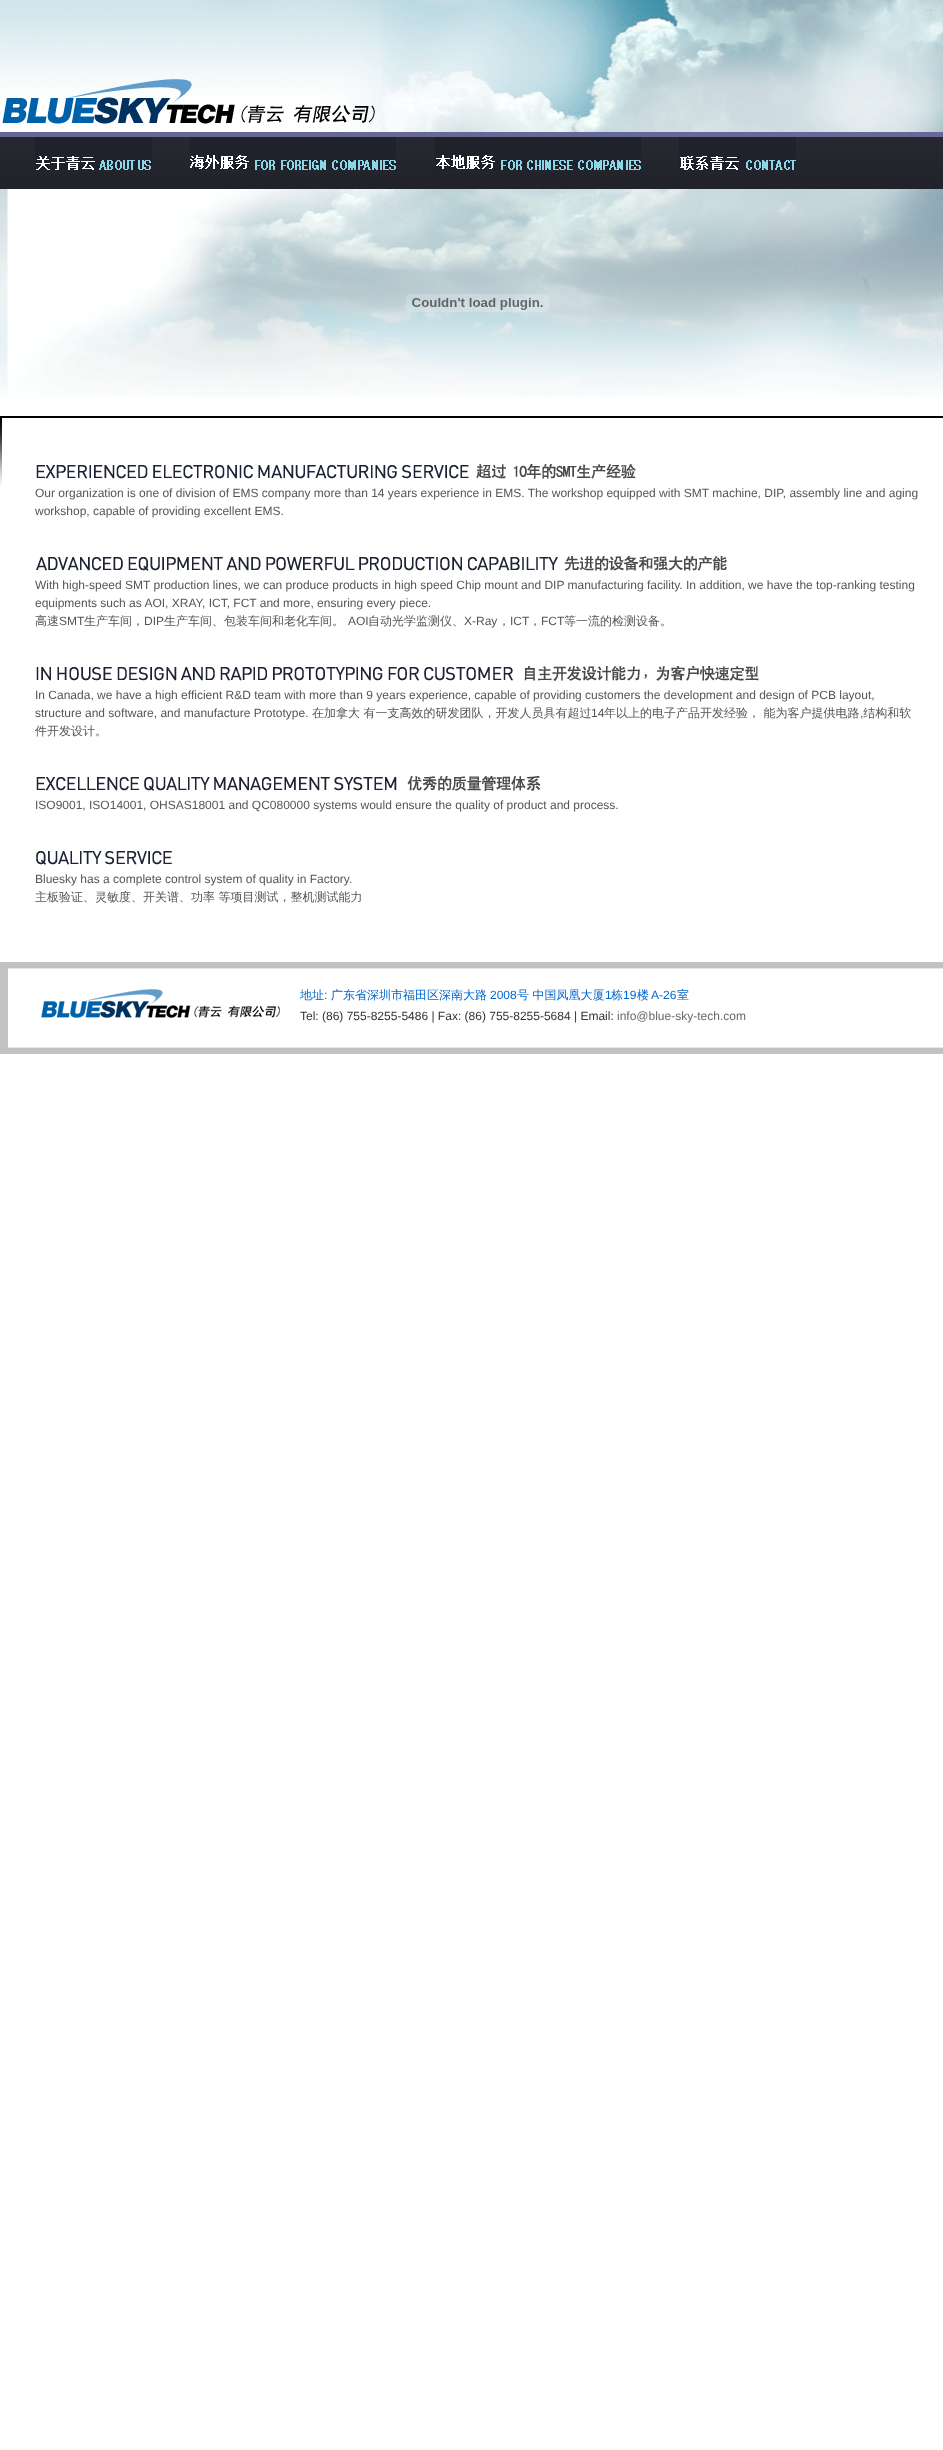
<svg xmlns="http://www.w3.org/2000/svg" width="943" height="2450">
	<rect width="100%" height="100%" fill="#FFFFFF" />
	<image x="0" y="0" width="943" height="397" href="assets/img1.png" />
	<image x="2" y="0" width="380" height="130" href="assets/img2.png" />
	<image x="0" y="132" width="943" height="57" href="assets/img3.png" />
	<image x="35" y="137" width="117" height="33" href="assets/img4.png" />
	<image x="190" y="137" width="206" height="33" href="assets/img5.png" />
	<image x="435" y="137" width="206" height="33" href="assets/img6.png" />
	<image x="679" y="137" width="117" height="33" href="assets/img7.png" />
	<image x="406" y="294" width="143" height="18" href="assets/img8.png" />
	<image x="0" y="416" width="943" height="70" href="assets/img9.png" />
	<image x="36" y="464" width="600" height="15" href="assets/img10.png" />
	<g font-family="Liberation Sans" font-size="12" fill="#555555">
		<text x="35" y="497">Our organization is one of division of EMS company more than 14 years experience in EMS. The workshop equipped with SMT machine, DIP, assembly line and aging</text>
		<text x="35" y="515">workshop, capable of providing excellent EMS.</text>
	</g>
	<image x="36" y="556" width="691" height="15" href="assets/img11.png" />
	<g font-family="Liberation Sans" font-size="12" fill="#555555">
		<text x="35" y="589">With high-speed SMT production lines, we can produce products in high speed Chip mount and DIP manufacturing facility. In addition, we have the top-ranking testing</text>
		<text x="35" y="607">equipments such as AOI, XRAY, ICT, FCT and more, ensuring every piece.</text>
	</g>
	<text x="35" y="625" font-family="WenQuanYi Zen Hei" font-size="12" font-weight="500" fill="#555555">高速</text>
	<text x="59" y="625" font-family="Liberation Sans" font-size="12" fill="#555555">SMT</text>
	<text x="84" y="625" font-family="WenQuanYi Zen Hei" font-size="12" font-weight="500" fill="#555555">生产车间，</text>
	<text x="144" y="625" font-family="Liberation Sans" font-size="12" fill="#555555">DIP</text>
	<text x="164" y="625" font-family="WenQuanYi Zen Hei" font-size="12" font-weight="500" fill="#555555">生产车间、包装车间和老化车间。</text>
	<text x="348" y="625" font-family="Liberation Sans" font-size="12" fill="#555555">AOI</text>
	<text x="368" y="625" font-family="WenQuanYi Zen Hei" font-size="12" font-weight="500" fill="#555555">自动光学监测仪、</text>
	<text x="464" y="625" font-family="Liberation Sans" font-size="12" fill="#555555">X-Ray</text>
	<text x="498" y="625" font-family="WenQuanYi Zen Hei" font-size="12" font-weight="500" fill="#555555">，</text>
	<text x="510" y="625" font-family="Liberation Sans" font-size="12" fill="#555555">ICT</text>
	<text x="529" y="625" font-family="WenQuanYi Zen Hei" font-size="12" font-weight="500" fill="#555555">，</text>
	<text x="541" y="625" font-family="Liberation Sans" font-size="12" fill="#555555">FCT</text>
	<text x="564" y="625" font-family="WenQuanYi Zen Hei" font-size="12" font-weight="500" fill="#555555">等一流的检测设备。</text>
	<image x="36" y="666" width="723" height="15" href="assets/img12.png" />
	<g font-family="Liberation Sans" font-size="12" fill="#555555">
		<text x="35" y="699">In Canada, we have a high efficient R&amp;D team with more than 9 years experience, capable of providing customers the development and design of PCB layout,</text>
		<text x="35" y="717">structure and software, and manufacture Prototype.</text>
	</g>
	<text x="312" y="717" font-family="WenQuanYi Zen Hei" font-size="12" font-weight="500" fill="#555555">在加拿大 有一支高效的研发团队，开发人员具有超过</text>
	<text x="591" y="717" font-family="Liberation Sans" font-size="12" fill="#555555">14</text>
	<text x="604" y="717" font-family="WenQuanYi Zen Hei" font-size="12" font-weight="500" fill="#555555">年以上的电子产品开发经验， 能为客户提供电路 结构和软</text>
	<text x="860" y="717" font-family="Liberation Sans" font-size="12" fill="#555555">,</text>
	<text x="35" y="735" font-family="WenQuanYi Zen Hei" font-size="12" font-weight="500" fill="#555555">件开发设计。</text>
	<image x="36" y="776" width="505" height="15" href="assets/img13.png" />
	<text x="35" y="809" font-family="Liberation Sans" font-size="12" fill="#555555">ISO9001, ISO14001, OHSAS18001 and QC080000 systems would ensure the quality of product and process.</text>
	<image x="36" y="851" width="136" height="14" href="assets/img14.png" />
	<text x="35" y="883" font-family="Liberation Sans" font-size="12" fill="#555555">Bluesky has a complete control system of quality in Factory.</text>
	<text x="35" y="901" font-family="WenQuanYi Zen Hei" font-size="12" font-weight="500" fill="#555555">主板验证、灵敏度、开关谱、功率 等项目测试，整机测试能力</text>
	<image x="0" y="962" width="943" height="92" href="assets/img15.png" />
	<text x="300" y="999" font-family="WenQuanYi Zen Hei" font-size="12" font-weight="500" fill="#0066CC">地址</text>
	<text x="324" y="999" font-family="Liberation Sans" font-size="12" fill="#0066CC">:</text>
	<text x="331" y="999" font-family="WenQuanYi Zen Hei" font-size="12" font-weight="500" fill="#0066CC">广东省深圳市福田区深南大路</text>
	<text x="490" y="999" font-family="Liberation Sans" font-size="12" fill="#0066CC">2008</text>
	<text x="517" y="999" font-family="WenQuanYi Zen Hei" font-size="12" font-weight="500" fill="#0066CC">号 中国凤凰大厦</text>
	<text x="605" y="999" font-family="Liberation Sans" font-size="12" fill="#0066CC">1</text>
	<text x="611" y="999" font-family="WenQuanYi Zen Hei" font-size="12" font-weight="500" fill="#0066CC">栋</text>
	<text x="623" y="999" font-family="Liberation Sans" font-size="12" fill="#0066CC">19</text>
	<text x="637" y="999" font-family="WenQuanYi Zen Hei" font-size="12" font-weight="500" fill="#0066CC">楼</text>
	<text x="651" y="999" font-family="Liberation Sans" font-size="12" fill="#0066CC">A-26</text>
	<text x="677" y="999" font-family="WenQuanYi Zen Hei" font-size="12" font-weight="500" fill="#0066CC">室</text>
	<text x="300" y="1020" font-family="Liberation Sans" font-size="12" fill="#333333">Tel: (86) 755-8255-5486 | Fax: (86) 755-8255-5684 | Email:</text>
	<text x="617" y="1020" font-family="Liberation Sans" font-size="12" fill="#66686A">info@blue-sky-tech.com</text>
</svg>
